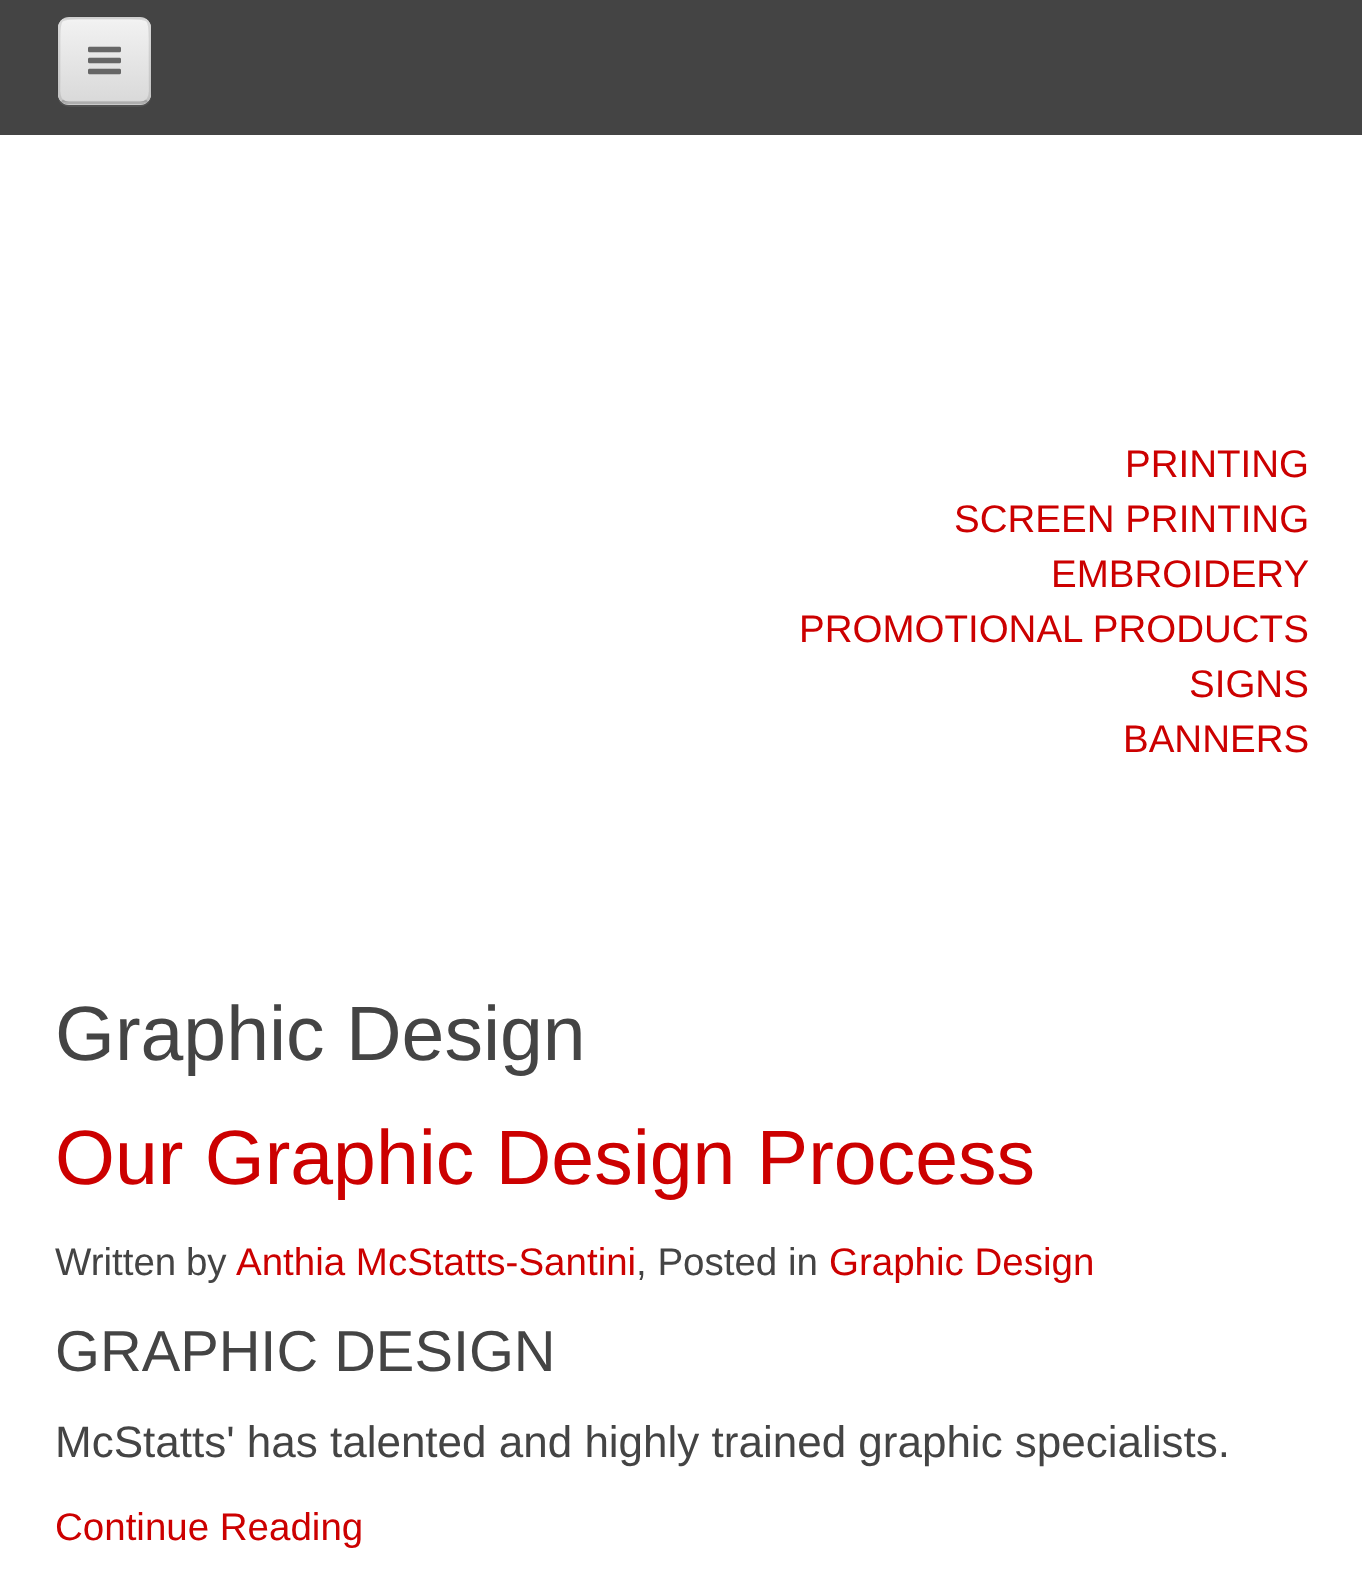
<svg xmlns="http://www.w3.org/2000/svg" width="1362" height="1579">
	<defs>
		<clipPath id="clip1"><rect x="58" y="17" width="93" height="88" rx="11" /></clipPath>
		<linearGradient id="g1" gradientUnits="userSpaceOnUse" x1="105" y1="19" x2="105" y2="102"><stop offset="0" stop-color="#F2F2F2" /><stop offset="1" stop-color="#D9D9D9" /></linearGradient>
	</defs>
	<rect width="100%" height="100%" fill="#FFFFFF" />
	<rect x="0" y="0" width="1362" height="135" fill="#444444" />
	<path d="M58 96C58 109 72 107 81 107H128C137 107 151 109 151 96C150 101 146 104 140 104H69C63 104 59 101 58 96Z" fill="#525252" />
	<rect x="58" y="17" width="93" height="88" rx="11" fill="#E8E8E8" />
	<g clip-path="url(#clip1)">
		<rect x="58" y="19" width="93" height="83" fill="url(#g1)" />
	</g>
	<path d="M69 22H142C150 24 148 35 148 41V98C149 97 149 96 149 94V27C149 23 145 19 141 19H69C65 19 61 22 61 26C63 24 66 22 69 22Z" fill="#FFFFFF" fill-opacity="0.1" />
	<path d="M147 100.5C145.5 102 143 103 140 103H69C66 103 63.5 102 62 100.5" fill="none" stroke="#000000" stroke-opacity="0.25" stroke-width="2.8" />
	<path d="M62 100.5C57.5 96 59 88 59 82.5V38.5C59 17.5 59.5 18 80.5 18H128.5C149.5 18 150 17.5 150 38.5V82.5C150 88 151.5 96 147 100.5" fill="none" stroke="#000000" stroke-opacity="0.1" stroke-width="2.8" />
	<image x="88" y="46" width="33" height="29" href="assets/img1.png" />
	<g font-family="Liberation Sans" font-size="38.5" fill="#CC0000">
		<text x="1125" y="477">PRINTING</text>
		<text x="954" y="532">SCREEN PRINTING</text>
		<text x="1051" y="587">EMBROIDERY</text>
		<text x="799" y="642">PROMOTIONAL PRODUCTS</text>
		<text x="1189" y="697">SIGNS</text>
		<text x="1123" y="752">BANNERS</text>
	</g>
	<text x="55" y="1060" font-family="Liberation Sans" font-size="77" fill="#444444">Graphic Design</text>
	<text x="55" y="1184" font-family="Liberation Sans" font-size="77" fill="#CC0000">Our Graphic Design Process</text>
	<text x="55" y="1275" word-spacing="-1" font-family="Liberation Sans" font-size="38.5" fill="#444444">Written by</text>
	<text x="236" y="1275" font-family="Liberation Sans" font-size="38.5" fill="#CC0000">Anthia McStatts-Santini</text>
	<text x="636" y="1275" font-family="Liberation Sans" font-size="38.5" fill="#444444">, Posted in</text>
	<text x="829" y="1275" font-family="Liberation Sans" font-size="38.5" fill="#CC0000">Graphic Design</text>
	<text x="55" y="1371" font-family="Liberation Sans" font-size="57.75" fill="#444444">GRAPHIC DESIGN</text>
	<text x="55" y="1457" font-family="Liberation Sans" font-size="44" fill="#444444">McStatts' has talented and highly trained graphic specialists.</text>
	<text x="55" y="1540" font-family="Liberation Sans" font-size="38.5" fill="#CC0000">Continue Reading</text>
</svg>
